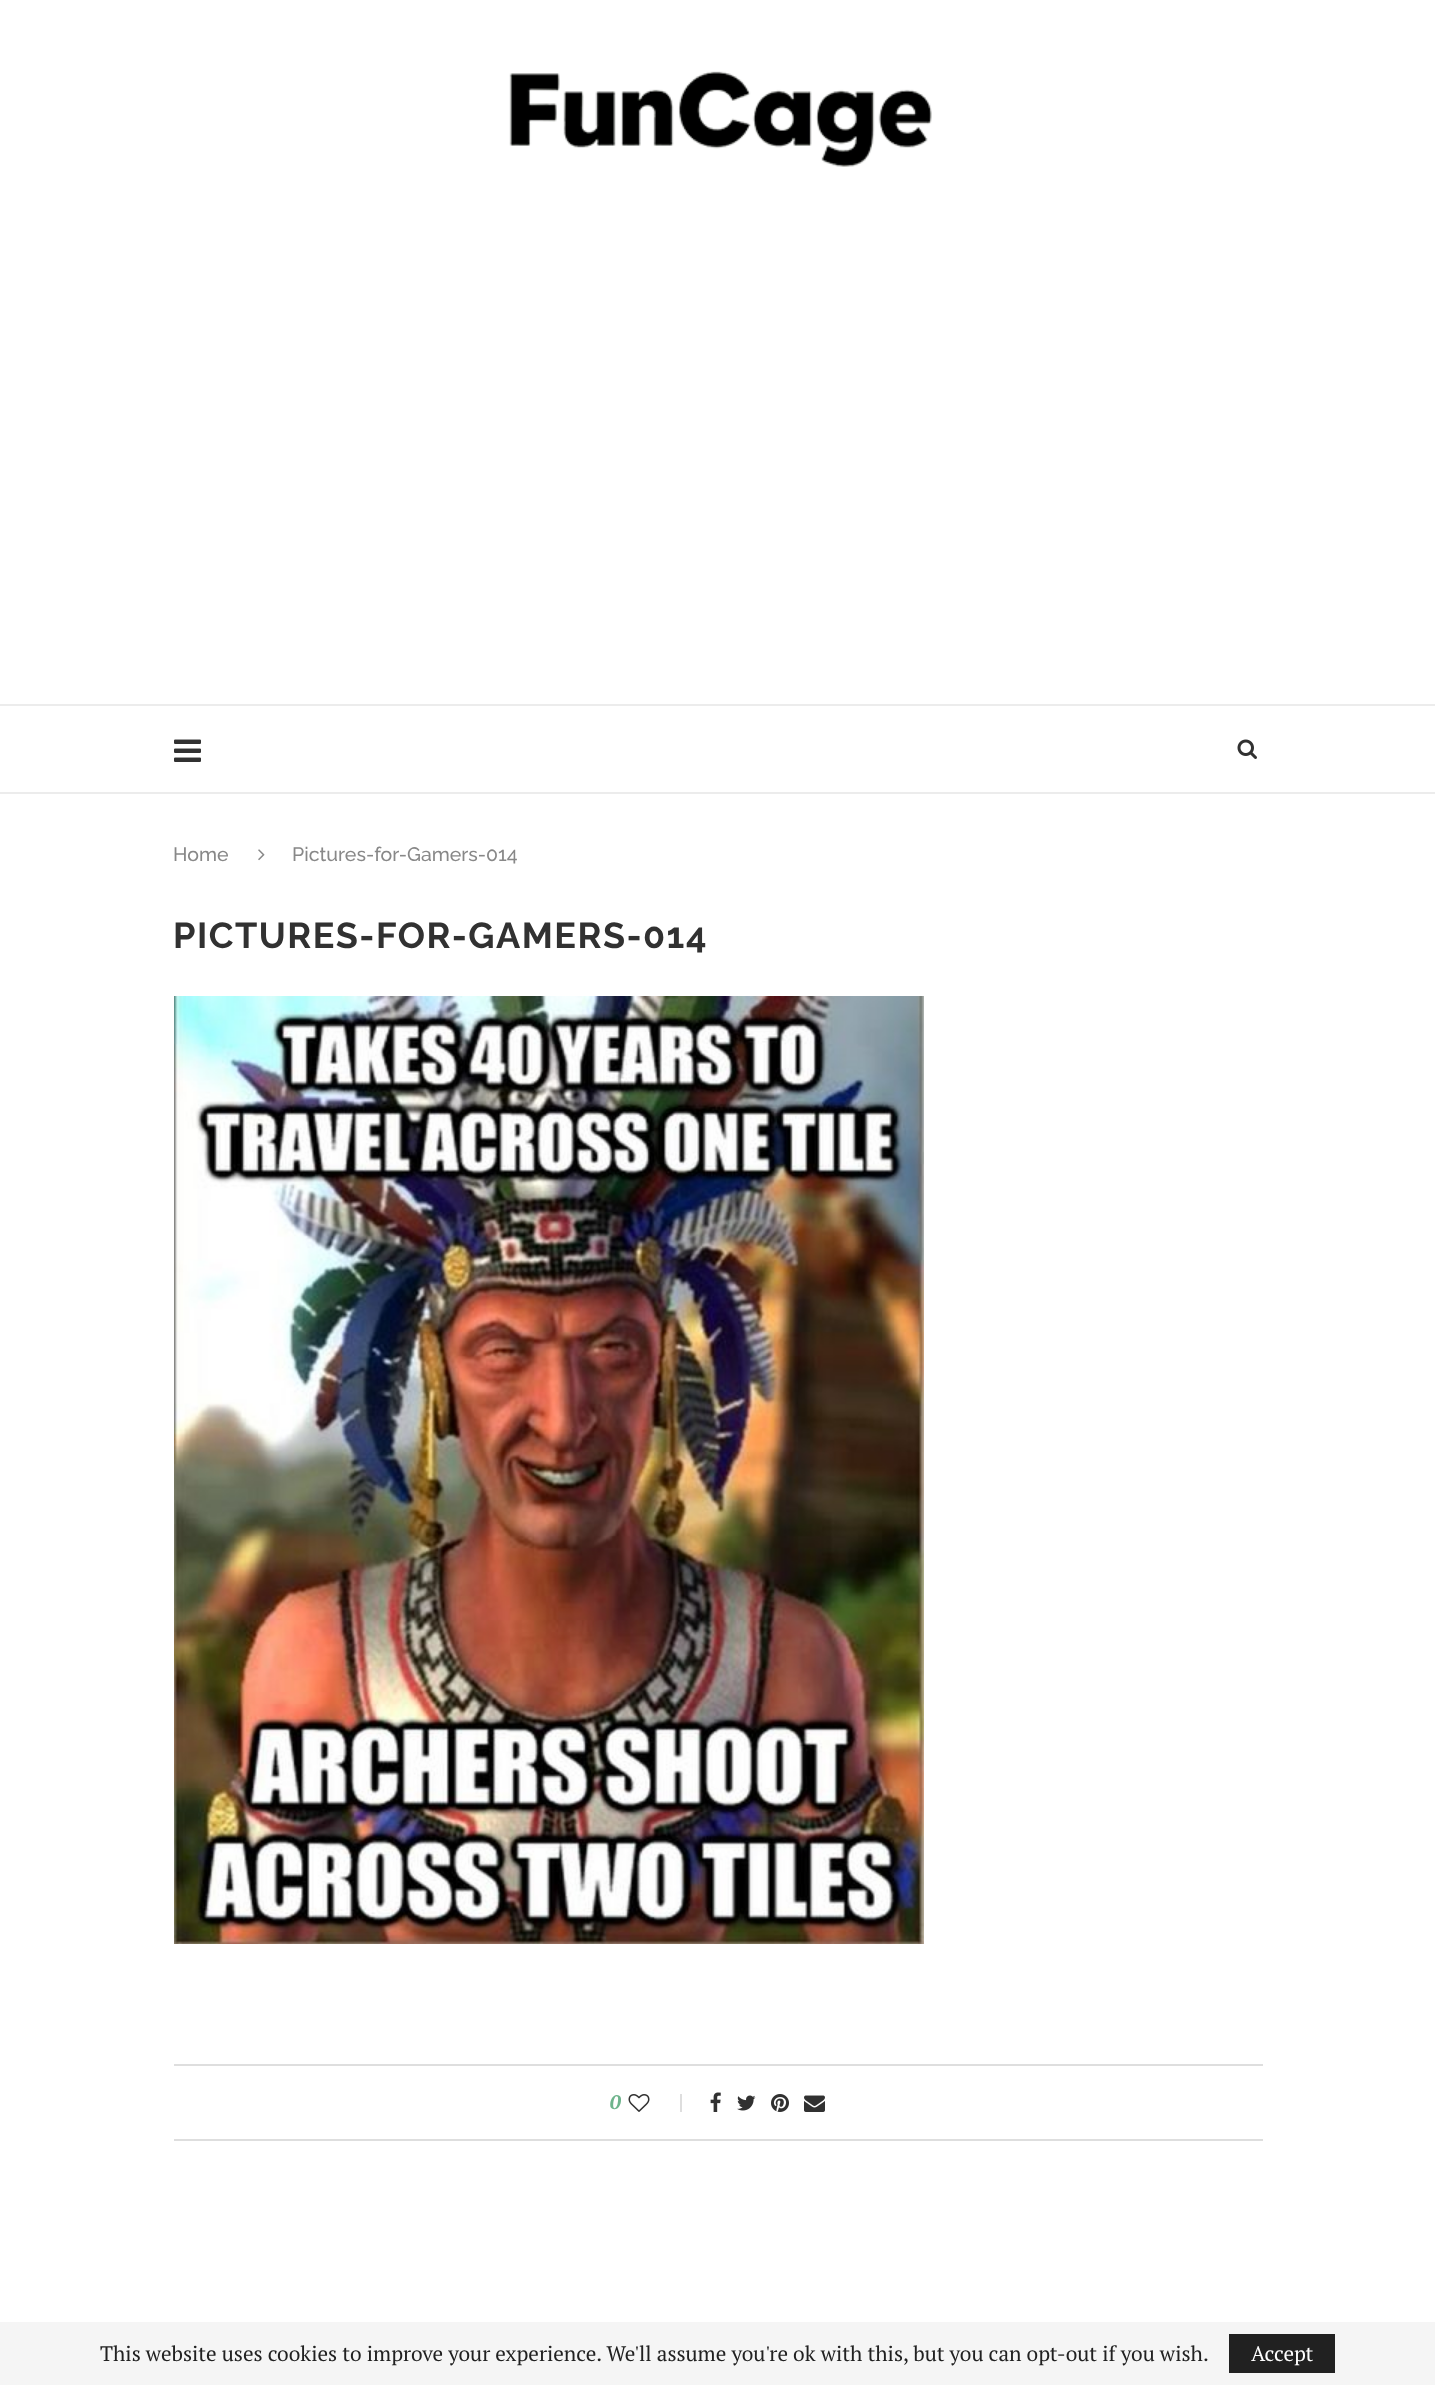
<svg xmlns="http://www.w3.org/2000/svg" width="1435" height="2385">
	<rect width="100%" height="100%" fill="#FFFFFF" />
	<image x="509" y="71" width="423" height="96" href="assets/img1.png" />
	<rect x="0" y="704" width="1435" height="2" fill="#ECECEC" />
	<rect x="0" y="792" width="1435" height="2" fill="#ECECEC" />
	<image x="174" y="739" width="27" height="23" href="assets/img2.png" />
	<image x="1237" y="739" width="20" height="20" href="assets/img3.png" />
	<text x="173" y="861" font-family="Raleway" font-size="19.5" font-weight="500" fill="#888888">Home</text>
	<image x="258" y="849" width="7" height="12" href="assets/img4.png" />
	<text x="292" y="861" font-family="Raleway" font-size="19.5" font-weight="500" fill="#888888">Pictures-for-Gamers-014</text>
	<text x="173" y="948" font-family="Raleway" font-size="36" font-weight="700" letter-spacing="1.5" fill="#313131">PICTURES-FOR-GAMERS-014</text>
	<image x="174" y="996" width="750" height="948" href="assets/img5.png" />
	<rect x="174" y="2064" width="1089" height="2" fill="#DEDEDE" />
	<text x="610" y="2109" font-family="PT Serif" font-size="19.5" font-weight="700" font-style="italic" fill="#6EB48C">0</text>
	<image x="628" y="2094" width="22" height="18" href="assets/img6.png" />
	<rect x="680" y="2094" width="2" height="18" fill="#DEDEDE" />
	<image x="710" y="2092" width="11" height="20" href="assets/img7.png" />
	<image x="737" y="2095" width="19" height="16" href="assets/img8.png" />
	<image x="771" y="2094" width="18" height="18" href="assets/img9.png" />
	<image x="804" y="2095" width="21" height="17" href="assets/img10.png" />
	<rect x="174" y="2139" width="1089" height="2" fill="#DEDEDE" />
	<rect x="0" y="2322" width="1435" height="63" fill="#F5F5F5" />
	<text x="100" y="2361" font-family="PT Serif" font-size="21" fill="#212121">This website uses cookies to improve your experience. We'll assume you're ok with this, but you can opt-out if you wish.</text>
	<rect x="1229" y="2334" width="106" height="39" fill="#212121" />
	<text x="1251" y="2361" font-family="PT Serif" font-size="21" fill="#FFFFFF">Accept</text>
</svg>
